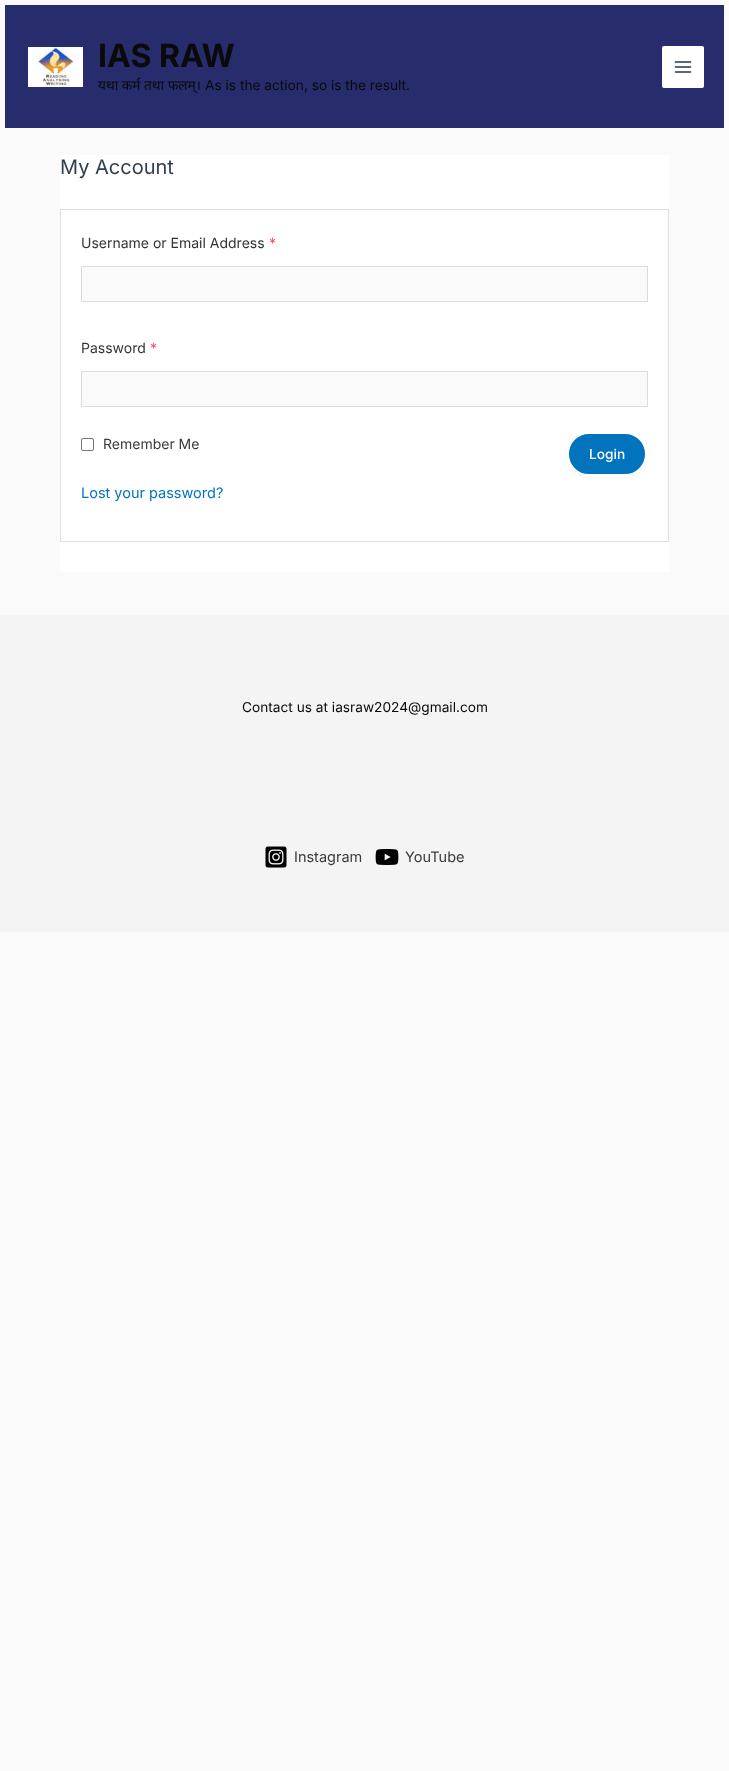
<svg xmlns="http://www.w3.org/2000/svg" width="729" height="1771">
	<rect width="100%" height="100%" fill="#FAFAFA" />
	<rect x="5" y="5" width="719" height="123" fill="#272C6C" />
	<image x="28" y="47" width="55" height="40" href="assets/img1.png" />
	<text x="98" y="67" font-family="Inter" font-size="32" font-weight="700" fill="#0A0A0A">IAS RAW</text>
	<text x="98" y="90" font-family="Noto Sans" font-size="13.7" fill="#0A0A0A">यथा कर्म तथा फलम्।</text>
	<text x="205" y="90" font-family="Inter" font-size="13.7" fill="#0A0A0A">As is the action, so is the result.</text>
	<rect x="662" y="46" width="42" height="42" rx="2" fill="#FFFFFF" />
	<image x="674" y="61" width="18" height="12" href="assets/img2.png" />
	<rect x="60" y="155" width="609" height="417" fill="#FFFFFF" />
	<text x="60" y="174" font-family="Inter" font-size="20" fill="#2F3F50">My Account</text>
	<rect x="60.5" y="209.5" width="608" height="332" fill="none" stroke="#E1E1E1" />
	<text x="81" y="248" font-family="Inter" font-size="14" fill="#333333">Username or Email Address</text>
	<text x="269" y="248" font-family="Inter" font-size="14" fill="#FF4F55">*</text>
	<rect x="81.5" y="266.5" width="566" height="35" fill="#FAFAFA" stroke="#DDDDDD" />
	<text x="81" y="353" font-family="Inter" font-size="14" fill="#333333">Password</text>
	<text x="150" y="353" font-family="Inter" font-size="14" fill="#FF4F55">*</text>
	<rect x="81.5" y="371.5" width="566" height="35" fill="#FAFAFA" stroke="#DDDDDD" />
	<rect x="81.5" y="438.5" width="12" height="12" rx="1.5" fill="none" stroke="#767676" />
	<text x="103" y="449" font-family="Inter" font-size="14" fill="#3A3A3A">Remember Me</text>
	<rect x="566" y="432" width="82" height="46" rx="23" fill="#B6BBCF" fill-opacity="0.15" filter="blur(1.5px)" />
	<rect x="567.5" y="432.5" width="79" height="43" rx="21.5" fill="#0274BE" stroke="#FFFFFF" stroke-width="3" />
	<text x="589" y="459" font-family="Inter" font-size="13.7" font-weight="500" fill="#FFFFFF">Login</text>
	<text x="81" y="498" font-family="Inter" font-size="14.5" fill="#0274BE">Lost your password?</text>
	<rect x="0" y="615" width="729" height="317" fill="#F4F4F4" />
	<text x="242" y="712" font-family="Inter" font-size="13.7" fill="#0A0A0A">Contact us at iasraw2024@gmail.com</text>
	<image x="265" y="846" width="22" height="22" href="assets/img3.png" />
	<text x="294" y="862" font-family="Inter" font-size="14.5" fill="#3A3A3A">Instagram</text>
	<image x="375" y="849" width="24" height="16" href="assets/img4.png" />
	<text x="405" y="862" font-family="Inter" font-size="14.5" fill="#3A3A3A">YouTube</text>
</svg>
